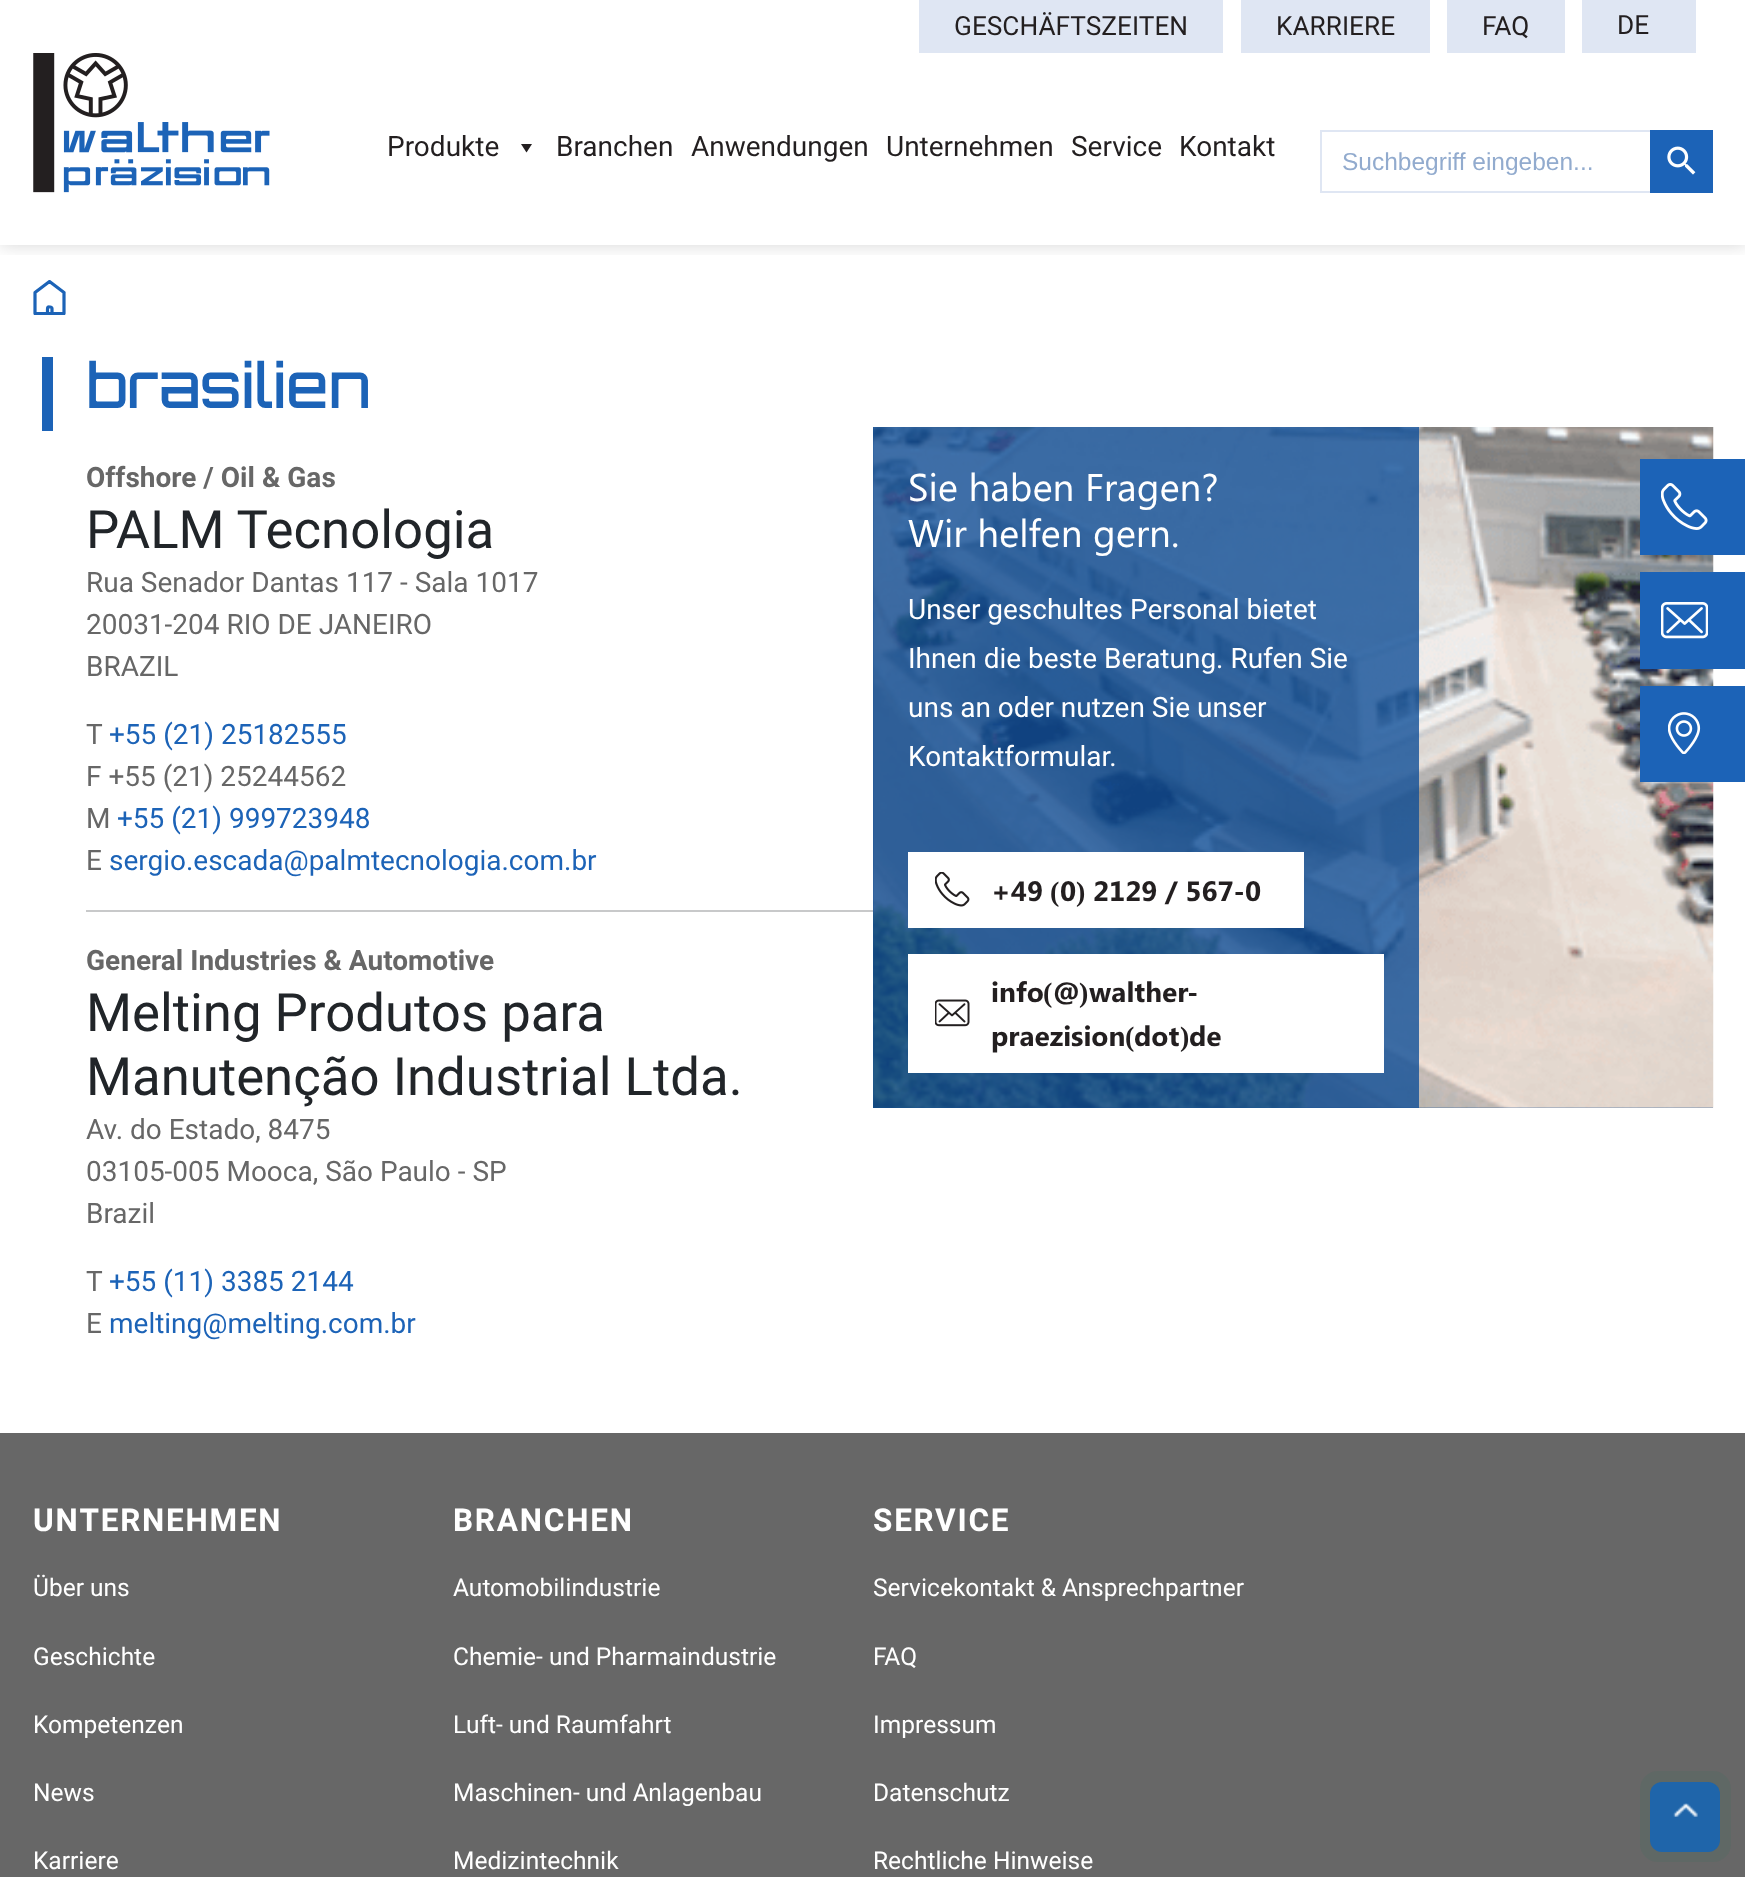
<svg xmlns="http://www.w3.org/2000/svg" width="1745" height="1877">
	<defs>
		<clipPath id="clip1"><rect x="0" y="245" width="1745" height="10" /></clipPath>
		<clipPath id="clip2"><rect x="33" y="280" width="34" height="35" /></clipPath>
	</defs>
	<rect width="100%" height="100%" fill="#FFFFFF" />
	<g clip-path="url(#clip1)">
		<rect x="0" y="0" width="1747" height="245" fill="#000000" fill-opacity="0.16" filter="blur(9px)" />
	</g>
	<rect x="919" y="0" width="304" height="53" fill="#DFE6F3" />
	<text x="954" y="35" font-family="Roboto" font-size="26.25" fill="#231F20">GESCHÄFTSZEITEN</text>
	<rect x="1241" y="0" width="189" height="53" fill="#DFE6F3" />
	<text x="1276" y="35" font-family="Roboto" font-size="26.25" fill="#231F20">KARRIERE</text>
	<rect x="1447" y="0" width="118" height="53" fill="#DFE6F3" />
	<text x="1482" y="35" font-family="Roboto" font-size="26.25" fill="#231F20">FAQ</text>
	<rect x="1582" y="0" width="114" height="53" fill="#DFE6F3" />
	<text x="1617" y="34" font-family="Roboto" font-size="26.25" fill="#231F20">DE</text>
	<image x="33" y="53" width="237" height="140" href="assets/img1.png" />
	<text x="387" y="156" font-family="Roboto" font-size="28" fill="#231F20">Produkte</text>
	<path d="M532 144L526.5 152.5L521 144Z" fill="#231F20" />
	<g font-family="Roboto" font-size="28" fill="#231F20">
		<text x="556" y="156">Branchen</text>
		<text x="691" y="156">Anwendungen</text>
		<text x="886" y="156">Unternehmen</text>
		<text x="1071" y="156">Service</text>
		<text x="1179" y="156">Kontakt</text>
	</g>
	<rect x="1320" y="130" width="330" height="2" fill="#DFE6F3" />
	<rect x="1320" y="191" width="330" height="2" fill="#DFE6F3" />
	<rect x="1320" y="130" width="2" height="63" fill="#DFE6F3" />
	<text x="1342" y="170" font-family="Liberation Sans" font-size="24.5" fill="#92ABCE">Suchbegriff eingeben...</text>
	<rect x="1650" y="130" width="63" height="63" fill="#1C63B7" />
	<image x="1667" y="146" width="29" height="29" href="assets/img2.png" />
	<g clip-path="url(#clip2)">
		<path d="M64 292.5L49.5 281.5L35 292.5V313.5H64V292.5M52 313.5H47.5V309C47.5 306.5 48 307 50.5 307C51 307 52 307.5 52 308.5Z" fill="none" stroke="#1C63B7" stroke-width="3.2" stroke-linecap="round" stroke-linejoin="round" />
	</g>
	<rect x="42" y="357" width="11" height="74" fill="#1C63B7" />
	<text x="86" y="408" font-family="Orbitron" font-size="61.25" font-weight="500" fill="#1C63B7">brasilien</text>
	<text x="86" y="487" font-family="Roboto" font-size="28" font-weight="700" fill="#676767">Offshore / Oil &amp; Gas</text>
	<text x="86" y="548" font-family="Roboto" font-size="52.75" fill="#212529">PALM Tecnologia</text>
	<g font-family="Roboto" font-size="28" fill="#676767">
		<text x="86" y="592">Rua Senador Dantas 117 - Sala 1017</text>
		<text x="86" y="634">20031-204 RIO DE JANEIRO</text>
		<text x="86" y="676">BRAZIL</text>
		<text x="86" y="744">T</text>
	</g>
	<text x="109" y="744" font-family="Roboto" font-size="28" fill="#1C63B7">+55 (21) 25182555</text>
	<g font-family="Roboto" font-size="28" fill="#676767">
		<text x="86" y="786">F +55 (21) 25244562</text>
		<text x="86" y="828">M</text>
	</g>
	<text x="117" y="828" font-family="Roboto" font-size="28" fill="#1C63B7">+55 (21) 999723948</text>
	<text x="86" y="870" font-family="Roboto" font-size="28" fill="#676767">E</text>
	<text x="109" y="870" font-family="Roboto" font-size="28" fill="#1C63B7">sergio.escada@palmtecnologia.com.br</text>
	<rect x="86" y="910" width="787" height="2" fill="#C8C9CA" />
	<text x="86" y="970" font-family="Roboto" font-size="28" font-weight="700" fill="#676767">General Industries &amp; Automotive</text>
	<g font-family="Roboto" font-size="52.75" fill="#212529">
		<text x="86" y="1031">Melting Produtos para</text>
		<text x="86" y="1095">Manutenção Industrial Ltda.</text>
	</g>
	<g font-family="Roboto" font-size="28" fill="#676767">
		<text x="86" y="1139">Av. do Estado, 8475</text>
		<text x="86" y="1181">03105-005 Mooca, São Paulo - SP</text>
		<text x="86" y="1223">Brazil</text>
		<text x="86" y="1291">T</text>
	</g>
	<text x="109" y="1291" font-family="Roboto" font-size="28" fill="#1C63B7">+55 (11) 3385 2144</text>
	<text x="86" y="1333" font-family="Roboto" font-size="28" fill="#676767">E</text>
	<text x="109" y="1333" font-family="Roboto" font-size="28" fill="#1C63B7">melting@melting.com.br</text>
	<rect x="873" y="427" width="840" height="681" fill="#104E97" />
	<image x="873" y="427" width="841" height="681" href="assets/img3.png" />
	<rect x="873" y="427" width="546" height="681" fill="#104F97" fill-opacity="0.8" />
	<g font-family="Segoe UI" font-size="38.5" fill="#FFFFFF">
		<text x="908" y="501">Sie haben Fragen?</text>
		<text x="908" y="547">Wir helfen gern.</text>
	</g>
	<g font-family="Roboto" font-size="28" fill="#FFFFFF">
		<text x="908" y="619">Unser geschultes Personal bietet</text>
		<text x="908" y="668">Ihnen die beste Beratung. Rufen Sie</text>
		<text x="908" y="717">uns an oder nutzen Sie unser</text>
		<text x="908" y="766">Kontaktformular.</text>
	</g>
	<rect x="908" y="852" width="396" height="76" fill="#FFFFFF" />
	<image x="935" y="872" width="35" height="35" href="assets/img4.png" />
	<text x="991" y="901" font-family="Segoe UI" font-size="28" font-weight="700" fill="#231F20">+49</text>
	<text x="1050" y="901" font-family="Liberation Serif" font-size="28" font-weight="700" fill="#231F20">(</text>
	<text x="1060" y="901" font-family="Segoe UI" font-size="28" font-weight="700" fill="#231F20">0</text>
	<text x="1076" y="901" font-family="Liberation Serif" font-size="28" font-weight="700" fill="#231F20">)</text>
	<text x="1093" y="901" font-family="Segoe UI" font-size="28" font-weight="700" fill="#231F20">2129 / 567-0</text>
	<rect x="908" y="954" width="476" height="119" fill="#FFFFFF" />
	<image x="935" y="999" width="35" height="28" href="assets/img5.png" />
	<text x="991" y="1002" font-family="Segoe UI" font-size="28" font-weight="700" fill="#231F20">info</text>
	<text x="1043" y="1002" font-family="Liberation Serif" font-size="28" font-weight="700" fill="#231F20">(</text>
	<text x="1053" y="1002" font-family="Segoe UI" font-size="28" font-weight="700" fill="#231F20">@</text>
	<text x="1079" y="1002" font-family="Liberation Serif" font-size="28" font-weight="700" fill="#231F20">)</text>
	<g font-family="Segoe UI" font-size="28" font-weight="700" fill="#231F20">
		<text x="1089" y="1002">walther-</text>
		<text x="991" y="1046">praezision</text>
	</g>
	<text x="1125" y="1046" font-family="Liberation Serif" font-size="28" font-weight="700" fill="#231F20">(</text>
	<text x="1134" y="1046" font-family="Segoe UI" font-size="28" font-weight="700" fill="#231F20">dot</text>
	<text x="1180" y="1046" font-family="Liberation Serif" font-size="28" font-weight="700" fill="#231F20">)</text>
	<text x="1189" y="1046" font-family="Segoe UI" font-size="28" font-weight="700" fill="#231F20">de</text>
	<rect x="1640" y="459" width="105" height="96" fill="#1C63B7" />
	<image x="1661" y="483" width="47" height="47" href="assets/img6.png" />
	<rect x="1640" y="572" width="105" height="97" fill="#1C63B7" />
	<image x="1661" y="602" width="47" height="37" href="assets/img7.png" />
	<rect x="1640" y="686" width="105" height="96" fill="#1C63B7" />
	<image x="1668" y="712" width="33" height="42" href="assets/img8.png" />
	<rect x="0" y="1433" width="1745" height="444" fill="#676767" />
	<text x="33" y="1531" font-family="Heebo" font-size="31.5" font-weight="700" letter-spacing="1.75" fill="#FFFFFF">UNTERNEHMEN</text>
	<g font-family="Heebo" font-size="24.5" fill="#FFFFFF">
		<text x="33" y="1596">Über uns</text>
		<text x="33" y="1665">Geschichte</text>
		<text x="33" y="1733">Kompetenzen</text>
		<text x="33" y="1801">News</text>
		<text x="33" y="1869">Karriere</text>
	</g>
	<text x="453" y="1531" font-family="Heebo" font-size="31.5" font-weight="700" letter-spacing="1.75" fill="#FFFFFF">BRANCHEN</text>
	<g font-family="Heebo" font-size="24.5" fill="#FFFFFF">
		<text x="453" y="1596">Automobilindustrie</text>
		<text x="453" y="1665">Chemie- und Pharmaindustrie</text>
		<text x="453" y="1733">Luft- und Raumfahrt</text>
		<text x="453" y="1801">Maschinen- und Anlagenbau</text>
		<text x="453" y="1869">Medizintechnik</text>
	</g>
	<text x="873" y="1531" font-family="Heebo" font-size="31.5" font-weight="700" letter-spacing="1.75" fill="#FFFFFF">SERVICE</text>
	<g font-family="Heebo" font-size="24.5" fill="#FFFFFF">
		<text x="873" y="1596">Servicekontakt &amp; Ansprechpartner</text>
		<text x="873" y="1665">FAQ</text>
		<text x="873" y="1733">Impressum</text>
		<text x="873" y="1801">Datenschutz</text>
		<text x="873" y="1869">Rechtliche Hinweise</text>
	</g>
	<rect x="1650" y="1782" width="70" height="70" rx="12" fill="#1C63B7" />
	<rect x="1640" y="1771" width="91" height="91" rx="18" fill="#327359" fill-opacity="0.14" />
	<image x="1673" y="1803" width="25" height="14" href="assets/img9.png" />
</svg>
